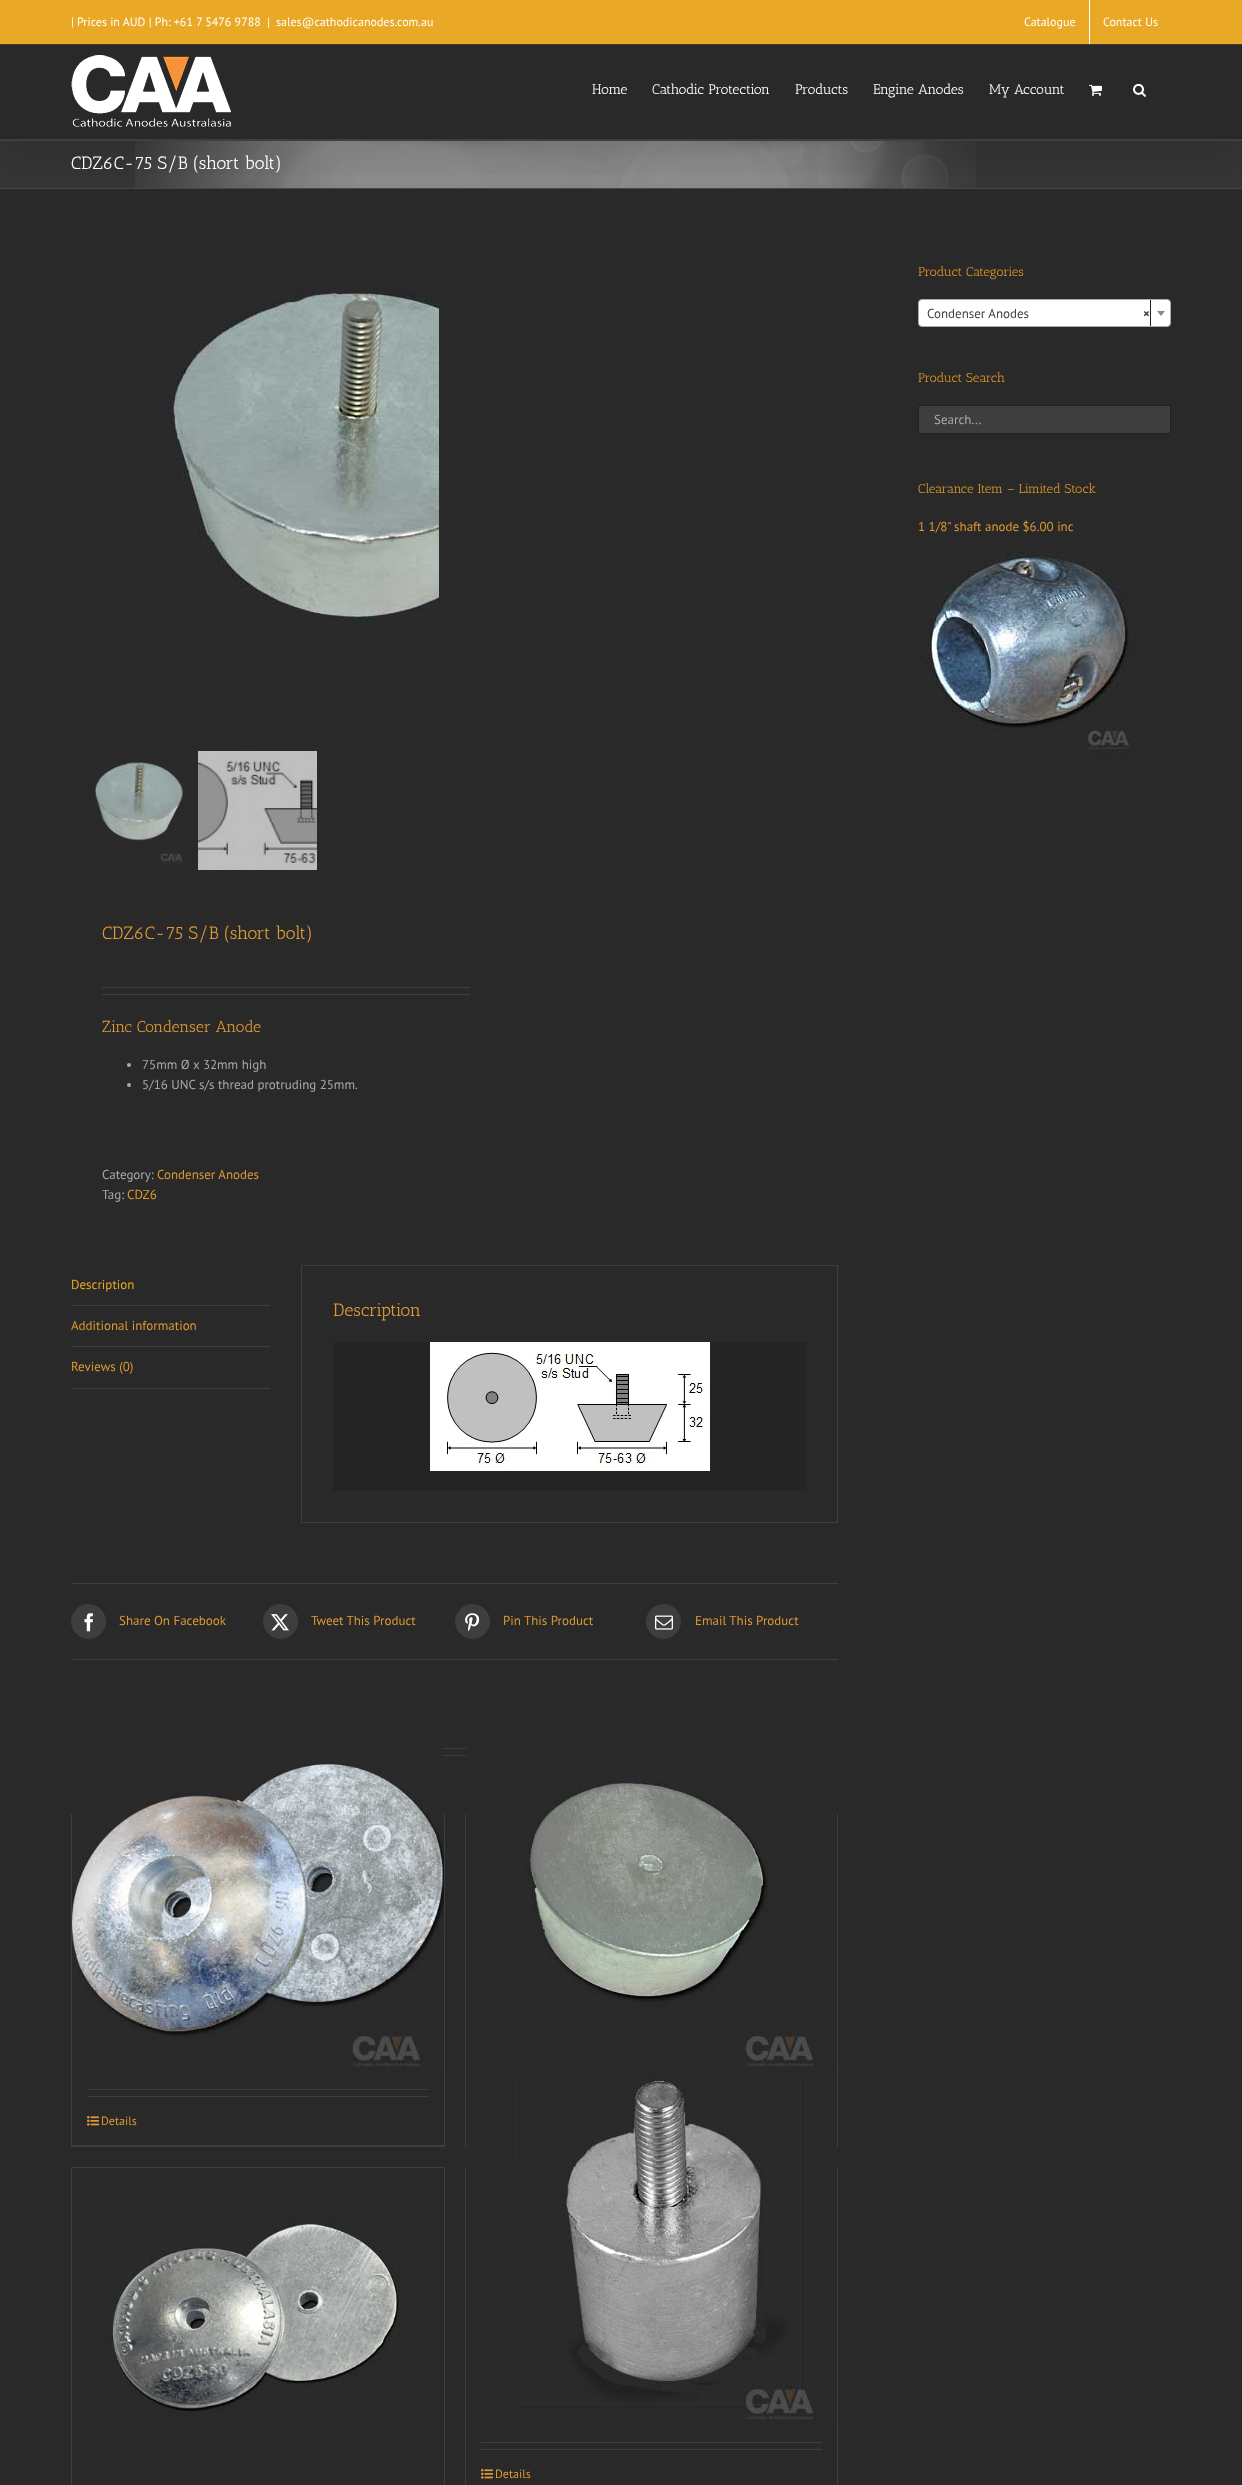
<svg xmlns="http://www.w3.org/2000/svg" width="1242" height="2485">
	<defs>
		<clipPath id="clip1"><rect x="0" y="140" width="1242" height="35" /></clipPath>
	</defs>
	<rect width="100%" height="100%" fill="#29292A" />
	<rect x="0" y="141" width="1242" height="47" fill="#353535" />
	<image x="135" y="141" width="841" height="47" href="assets/img4.png" />
	<rect x="0" y="140" width="1242" height="1" fill="#464646" />
	<rect x="0" y="188" width="1242" height="1" fill="#464646" />
	<g clip-path="url(#clip1)">
		<rect x="2" y="12" width="1238" height="136" fill="#000000" fill-opacity="0.14" filter="blur(25px)" />
	</g>
	<rect x="0" y="0" width="1242" height="44" fill="#E9A825" />
	<rect x="0" y="44" width="1242" height="1" fill="#3E3E3E" />
	<g font-family="PT Sans" font-size="12" fill="#FFFFFF">
		<text x="71" y="26">| Prices in AUD | Ph: +61 7 5476 9788</text>
		<text x="267" y="26">|</text>
		<text x="276" y="26">sales@cathodicanodes.com.au</text>
		<text x="1024" y="26">Catalogue</text>
	</g>
	<rect x="1089" y="0" width="1" height="44" fill="#FFFFFF" />
	<text x="1103" y="26" font-family="PT Sans" font-size="12" fill="#FFFFFF">Contact Us</text>
	<rect x="0" y="139" width="1242" height="1" fill="#3E3E3E" />
	<image x="71" y="55" width="160" height="72" href="assets/img1.png" />
	<g font-family="Antic Slab" font-size="14" fill="#FFFFFF">
		<text x="592" y="94">Home</text>
		<text x="652" y="94">Cathodic Protection</text>
		<text x="795" y="94">Products</text>
		<text x="873" y="94">Engine Anodes</text>
		<text x="989" y="94">My Account</text>
	</g>
	<image x="1089" y="84" width="13" height="12" href="assets/img2.png" />
	<image x="1133" y="83" width="13" height="14" href="assets/img3.png" />
	<text x="71" y="169" font-family="Antic Slab" font-size="18" fill="#FFFFFF">CDZ6C-75 S/B (short bolt)</text>
	<text x="918" y="276" font-family="Antic Slab" font-size="13" fill="#DD9425">Product Categories</text>
	<rect x="918.5" y="299.5" width="252" height="27" rx="3.5" fill="#FFFFFF" stroke="#AAAAAA" />
	<text x="927" y="318" font-family="PT Sans" font-size="13" fill="#444444">Condenser Anodes</text>
	<text x="1143" y="318" font-family="PT Sans" font-size="13" font-weight="700" fill="#444444">×</text>
	<rect x="1150" y="300" width="1" height="26" fill="#212122" />
	<path d="M1157 311H1165L1161 316Z" fill="#888888" />
	<text x="918" y="382" font-family="Antic Slab" font-size="13" fill="#DD9425">Product Search</text>
	<rect x="918.5" y="405.5" width="252" height="28" fill="#3E3E3E" stroke="#212122" />
	<text x="934" y="424" font-family="PT Sans" font-size="13" fill="#AAA9A9">Search...</text>
	<text x="918" y="493" font-family="Antic Slab" font-size="13" fill="#DD9425">Clearance Item – Limited Stock</text>
	<text x="918" y="531" font-family="PT Sans" font-size="13" fill="#DD9933">1 1/8" shaft anode $6.00 inc</text>
	<image x="926" y="553" width="208" height="200" href="assets/img5.png" />
	<image x="167" y="292" width="272" height="335" href="assets/img6.png" />
	<image x="94" y="762" width="89" height="102" href="assets/img7.png" />
	<image x="198" y="751" width="119" height="119" href="assets/img8.png" />
	<text x="102" y="939" font-family="Antic Slab" font-size="18" fill="#DD9933">CDZ6C-75 S/B (short bolt)</text>
	<rect x="102" y="987" width="368" height="1" fill="#3E3E3E" />
	<rect x="102" y="994" width="368" height="1" fill="#3E3E3E" />
	<text x="102" y="1032" font-family="Antic Slab" font-size="16" fill="#DD9933">Zinc Condenser Anode</text>
	<circle cx="129" cy="1065" r="2" fill="#AAA9A9" />
	<text x="142" y="1069" font-family="PT Sans" font-size="13" fill="#AAA9A9">75mm Ø x 32mm high</text>
	<circle cx="129" cy="1085" r="2" fill="#AAA9A9" />
	<g font-family="PT Sans" font-size="13" fill="#AAA9A9">
		<text x="142" y="1089">5/16 UNC s/s thread protruding 25mm.</text>
		<text x="102" y="1179">Category:</text>
	</g>
	<text x="157" y="1179" font-family="PT Sans" font-size="13" fill="#DD9933">Condenser Anodes</text>
	<text x="102" y="1199" font-family="PT Sans" font-size="13" fill="#AAA9A9">Tag:</text>
	<text x="127" y="1199" font-family="PT Sans" font-size="13" fill="#DD9933">CDZ6</text>
	<rect x="71" y="1305" width="199" height="1" fill="#3E3E3E" />
	<text x="71" y="1289" font-family="PT Sans" font-size="13" fill="#E9A825">Description</text>
	<rect x="71" y="1346" width="199" height="1" fill="#3E3E3E" />
	<text x="71" y="1330" font-family="PT Sans" font-size="13" fill="#DD9933">Additional information</text>
	<rect x="71" y="1388" width="199" height="1" fill="#3E3E3E" />
	<text x="71" y="1371" font-family="PT Sans" font-size="13" fill="#DD9933">Reviews (0)</text>
	<rect x="301.5" y="1265.5" width="536" height="257" fill="none" stroke="#3E3E3E" />
	<text x="333" y="1316" font-family="Antic Slab" font-size="18" fill="#DD9933">Description</text>
	<rect x="333" y="1342" width="473" height="149" fill="#242424" />
	<image x="430" y="1342" width="280" height="129" href="assets/img9.png" />
	<rect x="71" y="1583" width="767" height="1" fill="#3E3E3E" />
	<rect x="71" y="1659" width="767" height="1" fill="#3E3E3E" />
	<circle cx="88.5" cy="1621.5" r="17" fill="#3E3E3E" stroke="#3E3E3E" />
	<image x="84" y="1613" width="9" height="19" href="assets/img10.png" />
	<text x="119" y="1625" font-family="PT Sans" font-size="13" fill="#DD9933">Share On Facebook</text>
	<circle cx="280.5" cy="1621.5" r="17" fill="#3E3E3E" stroke="#3E3E3E" />
	<image x="271" y="1614" width="18" height="17" href="assets/img11.png" />
	<text x="311" y="1625" font-family="PT Sans" font-size="13" fill="#DD9933">Tweet This Product</text>
	<circle cx="472.5" cy="1621.5" r="17" fill="#3E3E3E" stroke="#3E3E3E" />
	<image x="465" y="1613" width="15" height="19" href="assets/img12.png" />
	<text x="503" y="1625" font-family="PT Sans" font-size="13" fill="#DD9933">Pin This Product</text>
	<circle cx="663.5" cy="1621.5" r="17" fill="#3E3E3E" stroke="#3E3E3E" />
	<image x="655" y="1615" width="18" height="15" href="assets/img13.png" />
	<text x="695" y="1625" font-family="PT Sans" font-size="13" fill="#DD9933">Email This Product</text>
	<rect x="444" y="1748" width="394" height="1" fill="#3E3E3E" />
	<rect x="444" y="1755" width="394" height="1" fill="#3E3E3E" />
	<rect x="444" y="1814" width="1" height="333" fill="#3E3E3E" />
	<rect x="71" y="2145" width="374" height="2" fill="#3E3E3E" />
	<rect x="71" y="1814" width="1" height="333" fill="#3E3E3E" />
	<image x="72" y="1743" width="372" height="324" href="assets/img14.png" />
	<rect x="87" y="2089" width="342" height="1" fill="#3E3E3E" />
	<rect x="87" y="2096" width="342" height="1" fill="#3E3E3E" />
	<image x="87" y="2116" width="12" height="10" href="assets/img15.png" />
	<text x="101" y="2125" font-family="PT Sans" font-size="12" fill="#DD9933">Details</text>
	<rect x="837" y="1814" width="1" height="333" fill="#3E3E3E" />
	<rect x="465" y="1814" width="1" height="333" fill="#3E3E3E" />
	<image x="466" y="1748" width="371" height="319" href="assets/img16.png" />
	<rect x="71" y="2167" width="374" height="1" fill="#3E3E3E" />
	<rect x="444" y="2167" width="1" height="318" fill="#3E3E3E" />
	<rect x="71" y="2167" width="1" height="318" fill="#3E3E3E" />
	<image x="109" y="2222" width="290" height="190" href="assets/img17.png" />
	<rect x="837" y="2167" width="1" height="318" fill="#3E3E3E" />
	<rect x="465" y="2167" width="1" height="318" fill="#3E3E3E" />
	<image x="466" y="2076" width="371" height="344" href="assets/img18.png" />
	<rect x="481" y="2442" width="341" height="1" fill="#3E3E3E" />
	<rect x="481" y="2449" width="341" height="1" fill="#3E3E3E" />
	<image x="481" y="2469" width="12" height="10" href="assets/img15.png" />
	<text x="495" y="2478" font-family="PT Sans" font-size="12" fill="#DD9933">Details</text>
</svg>
